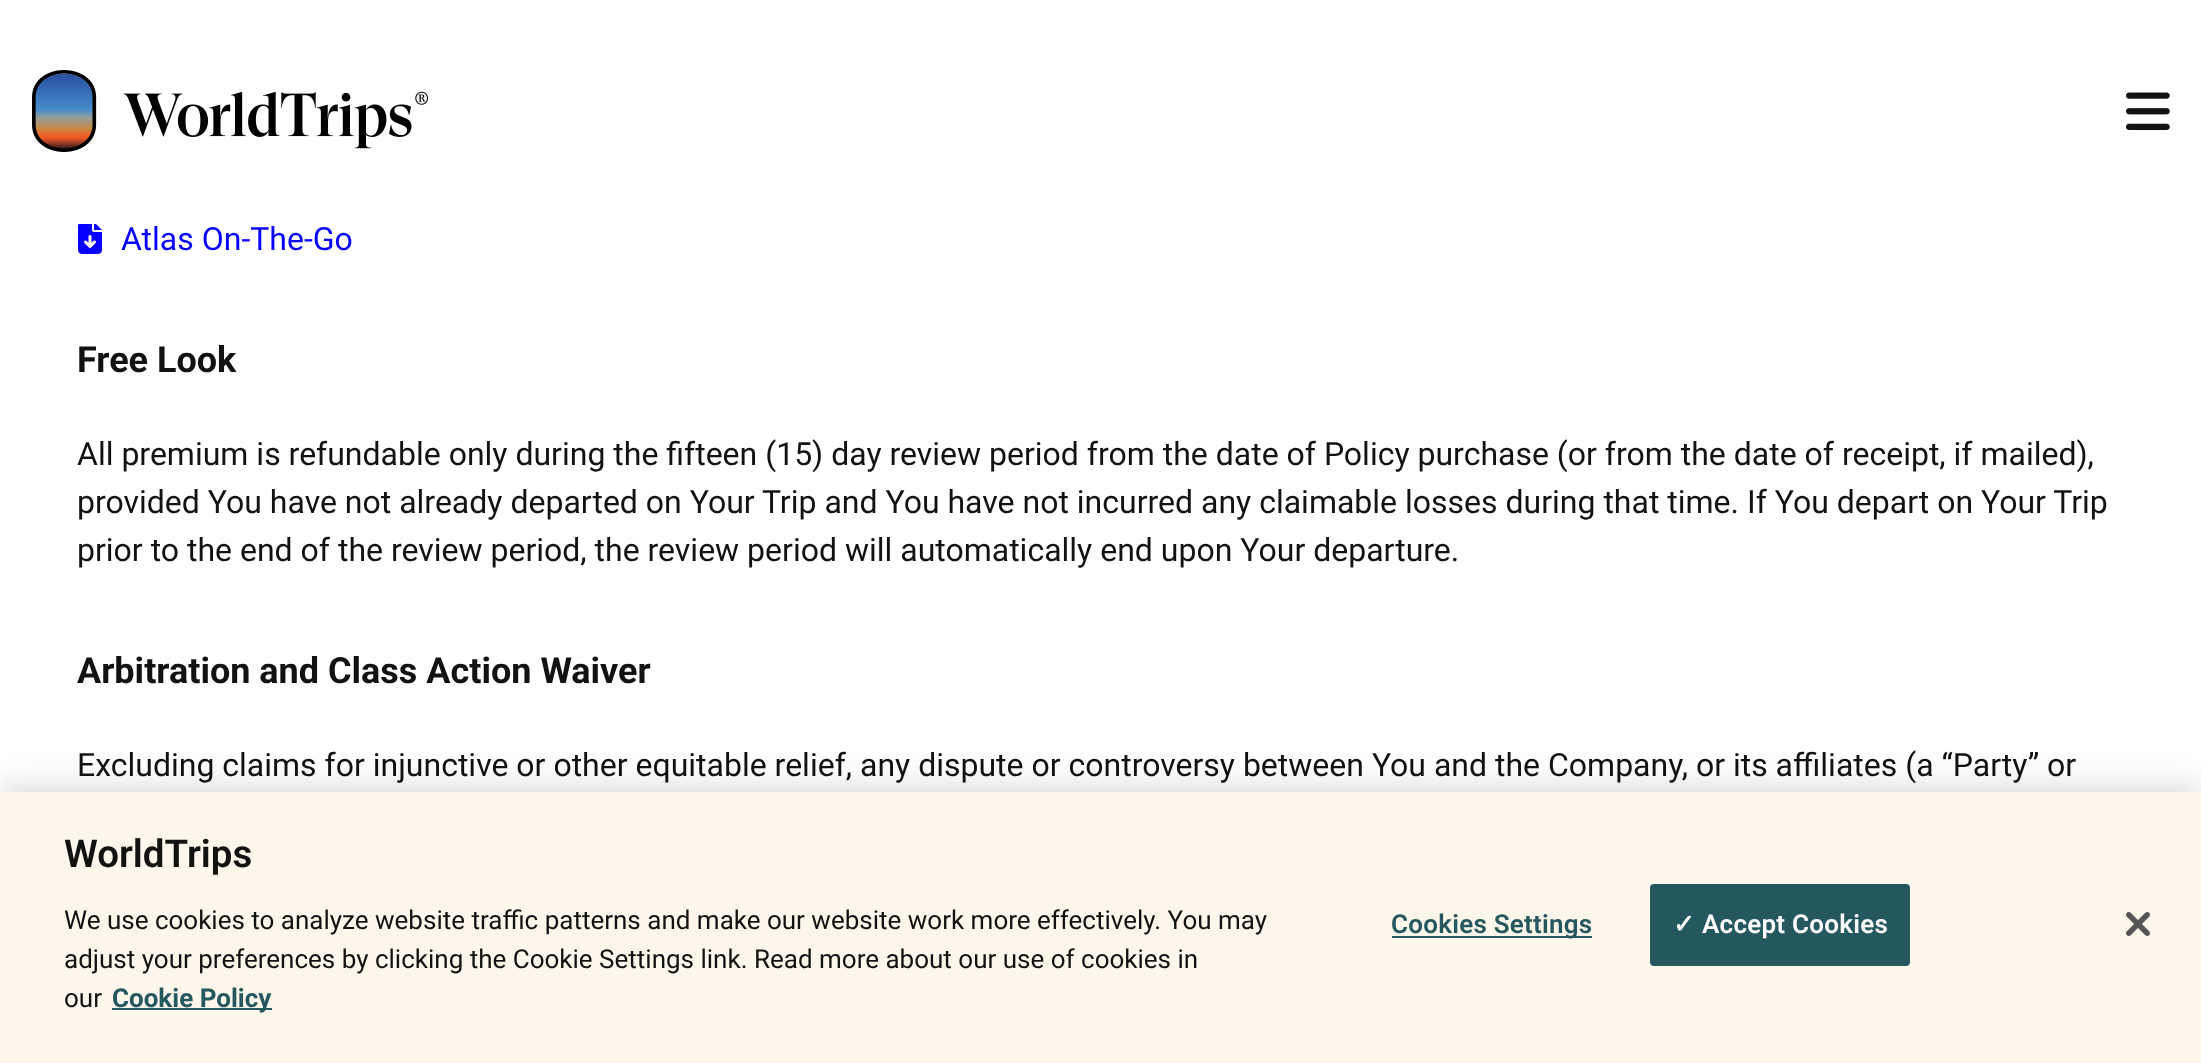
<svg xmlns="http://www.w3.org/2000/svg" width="2201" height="1063">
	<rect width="100%" height="100%" fill="#FFFFFF" />
	<image x="32" y="70" width="396" height="82" href="assets/img1.png" />
	<image x="2126" y="92" width="44" height="38" href="assets/img2.png" />
	<image x="78" y="224" width="24" height="30" href="assets/img3.png" />
	<text x="121" y="250" font-family="Roboto" font-size="32" fill="#0600FF">Atlas On-The-Go</text>
	<text x="77" y="372" font-family="Roboto" font-size="36" font-weight="700" fill="#121212">Free Look</text>
	<g font-family="Roboto" font-size="32" fill="#121212">
		<text x="77" y="465">All premium is refundable only during the fifteen (15) day review period from the date of Policy purchase (or from the date of receipt, if mailed),</text>
		<text x="77" y="513">provided You have not already departed on Your Trip and You have not incurred any claimable losses during that time. If You depart on Your Trip</text>
		<text x="77" y="561">prior to the end of the review period, the review period will automatically end upon Your departure.</text>
	</g>
	<text x="77" y="683" font-family="Roboto" font-size="36" font-weight="700" fill="#121212">Arbitration and Class Action Waiver</text>
	<text x="77" y="776" font-family="Roboto" font-size="32" fill="#121212">Excluding claims for injunctive or other equitable relief, any dispute or controversy between You and the Company, or its affiliates (a “Party” or</text>
	<rect x="0" y="792" width="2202" height="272" fill="#000000" fill-opacity="0.2" filter="blur(18px)" />
	<rect x="0" y="792" width="2201" height="271" fill="#FCF6EB" />
	<text x="64" y="867" font-family="Roboto" font-size="38.5" font-weight="600" fill="#121212">WorldTrips</text>
	<g font-family="Roboto" font-size="26" fill="#121212">
		<text x="64" y="929">We use cookies to analyze website traffic patterns and make our website work more effectively. You may</text>
		<text x="64" y="968">adjust your preferences by clicking the Cookie Settings link. Read more about our use of cookies in</text>
		<text x="64" y="1007">our</text>
	</g>
	<rect x="112" y="1008" width="160" height="2" fill="#25575E" />
	<text x="112" y="1007" font-family="Roboto" font-size="26" font-weight="700" fill="#25575E">Cookie Policy</text>
	<rect x="1392" y="936" width="200" height="2" fill="#25575E" />
	<text x="1391" y="933" font-family="Roboto" font-size="26" font-weight="600" letter-spacing="0.25" fill="#25575E">Cookies Settings</text>
	<rect x="1651" y="885" width="258" height="80" rx="3" fill="#25575E" stroke="#25575E" stroke-width="2" />
	<text x="1673" y="933" font-family="DejaVu Sans" font-size="26" font-weight="700" letter-spacing="0.25" fill="#FFFFFF">✓</text>
	<text x="1702" y="933" font-family="Roboto" font-size="26" font-weight="600" letter-spacing="0.25" fill="#FFFFFF">Accept Cookies</text>
	<image x="2126" y="912" width="24" height="24" href="assets/img4.png" />
</svg>
